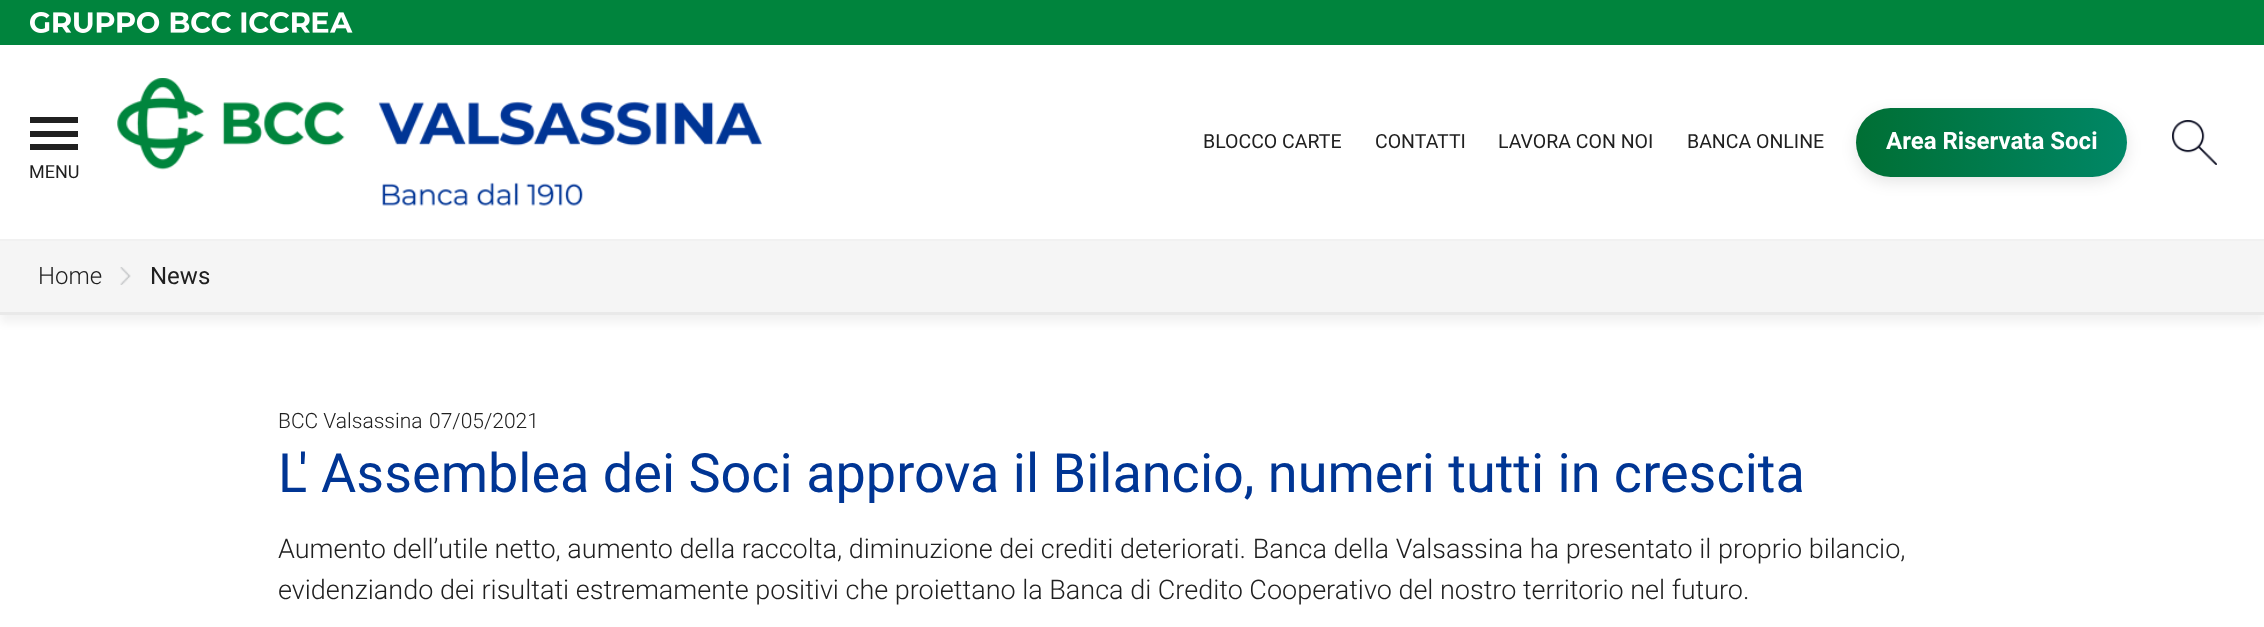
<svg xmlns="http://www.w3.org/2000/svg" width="2264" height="627">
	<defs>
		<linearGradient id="g1" gradientUnits="userSpaceOnUse" x1="2127" y1="142" x2="1856" y2="143"><stop offset="0" stop-color="#008766" /><stop offset="1" stop-color="#006F34" /></linearGradient>
	</defs>
	<rect width="100%" height="100%" fill="#FFFFFF" />
	<rect x="0" y="0" width="2264" height="45" fill="#00843D" />
	<image x="30" y="12" width="323" height="21" href="assets/img1.png" />
	<rect x="0" y="248" width="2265" height="75" fill="#000000" fill-opacity="0.05" filter="blur(4px)" />
	<rect x="0" y="239" width="2264" height="2" fill="#F1F1F1" />
	<image x="117" y="78" width="645" height="128" href="assets/img2.png" />
	<g font-family="'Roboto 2'" font-size="19.5" fill="#202020">
		<text x="1203" y="148">BLOCCO CARTE</text>
		<text x="1375" y="148">CONTATTI</text>
		<text x="1498" y="148">LAVORA CON NOI</text>
		<text x="1687" y="148">BANCA ONLINE</text>
	</g>
	<rect x="1856" y="113" width="271" height="69" rx="34.5" fill="#000000" fill-opacity="0.1" filter="blur(7.5px)" />
	<rect x="1856" y="108" width="271" height="69" rx="34.5" fill="url(#g1)" />
	<text x="1886" y="149" font-family="Roboto" font-size="24" font-weight="700" fill="#FFFFFF">Area Riservata Soci</text>
	<image x="2172" y="120" width="45" height="45" href="assets/img3.png" />
	<rect x="30" y="131" width="48" height="6" fill="#202020" />
	<rect x="30" y="117" width="48" height="6" fill="#202020" />
	<rect x="30" y="144" width="48" height="6" fill="#202020" />
	<text x="29" y="178" font-family="'Roboto 2'" font-size="18" fill="#202020">MENU</text>
	<rect x="0" y="241" width="2264" height="71" fill="#F5F5F5" />
	<rect x="0" y="312" width="2264" height="3" fill="#E9E9E9" />
	<text x="38" y="284" font-family="Roboto" font-size="24" font-weight="300" fill="#202020">Home</text>
	<image x="120" y="267" width="11" height="18" href="assets/img4.png" />
	<text x="150" y="284" font-family="'Roboto 2'" font-size="24" fill="#202020">News</text>
	<g font-family="Roboto" font-size="21" font-weight="300" fill="#202020">
		<text x="278" y="428">BCC Valsassina</text>
		<text x="429" y="428">07/05/2021</text>
	</g>
	<text x="278" y="492" font-family="Roboto" font-size="54" fill="#003594">L' Assemblea dei Soci approva il Bilancio, numeri tutti in crescita</text>
	<g font-family="Roboto" font-size="27" font-weight="300" fill="#202020">
		<text x="278" y="558">Aumento dell’utile netto, aumento della raccolta, diminuzione dei crediti deteriorati. Banca della Valsassina ha presentato il proprio bilancio,</text>
		<text x="278" y="599">evidenziando dei risultati estremamente positivi che proiettano la Banca di Credito Cooperativo del nostro territorio nel futuro.</text>
	</g>
</svg>
